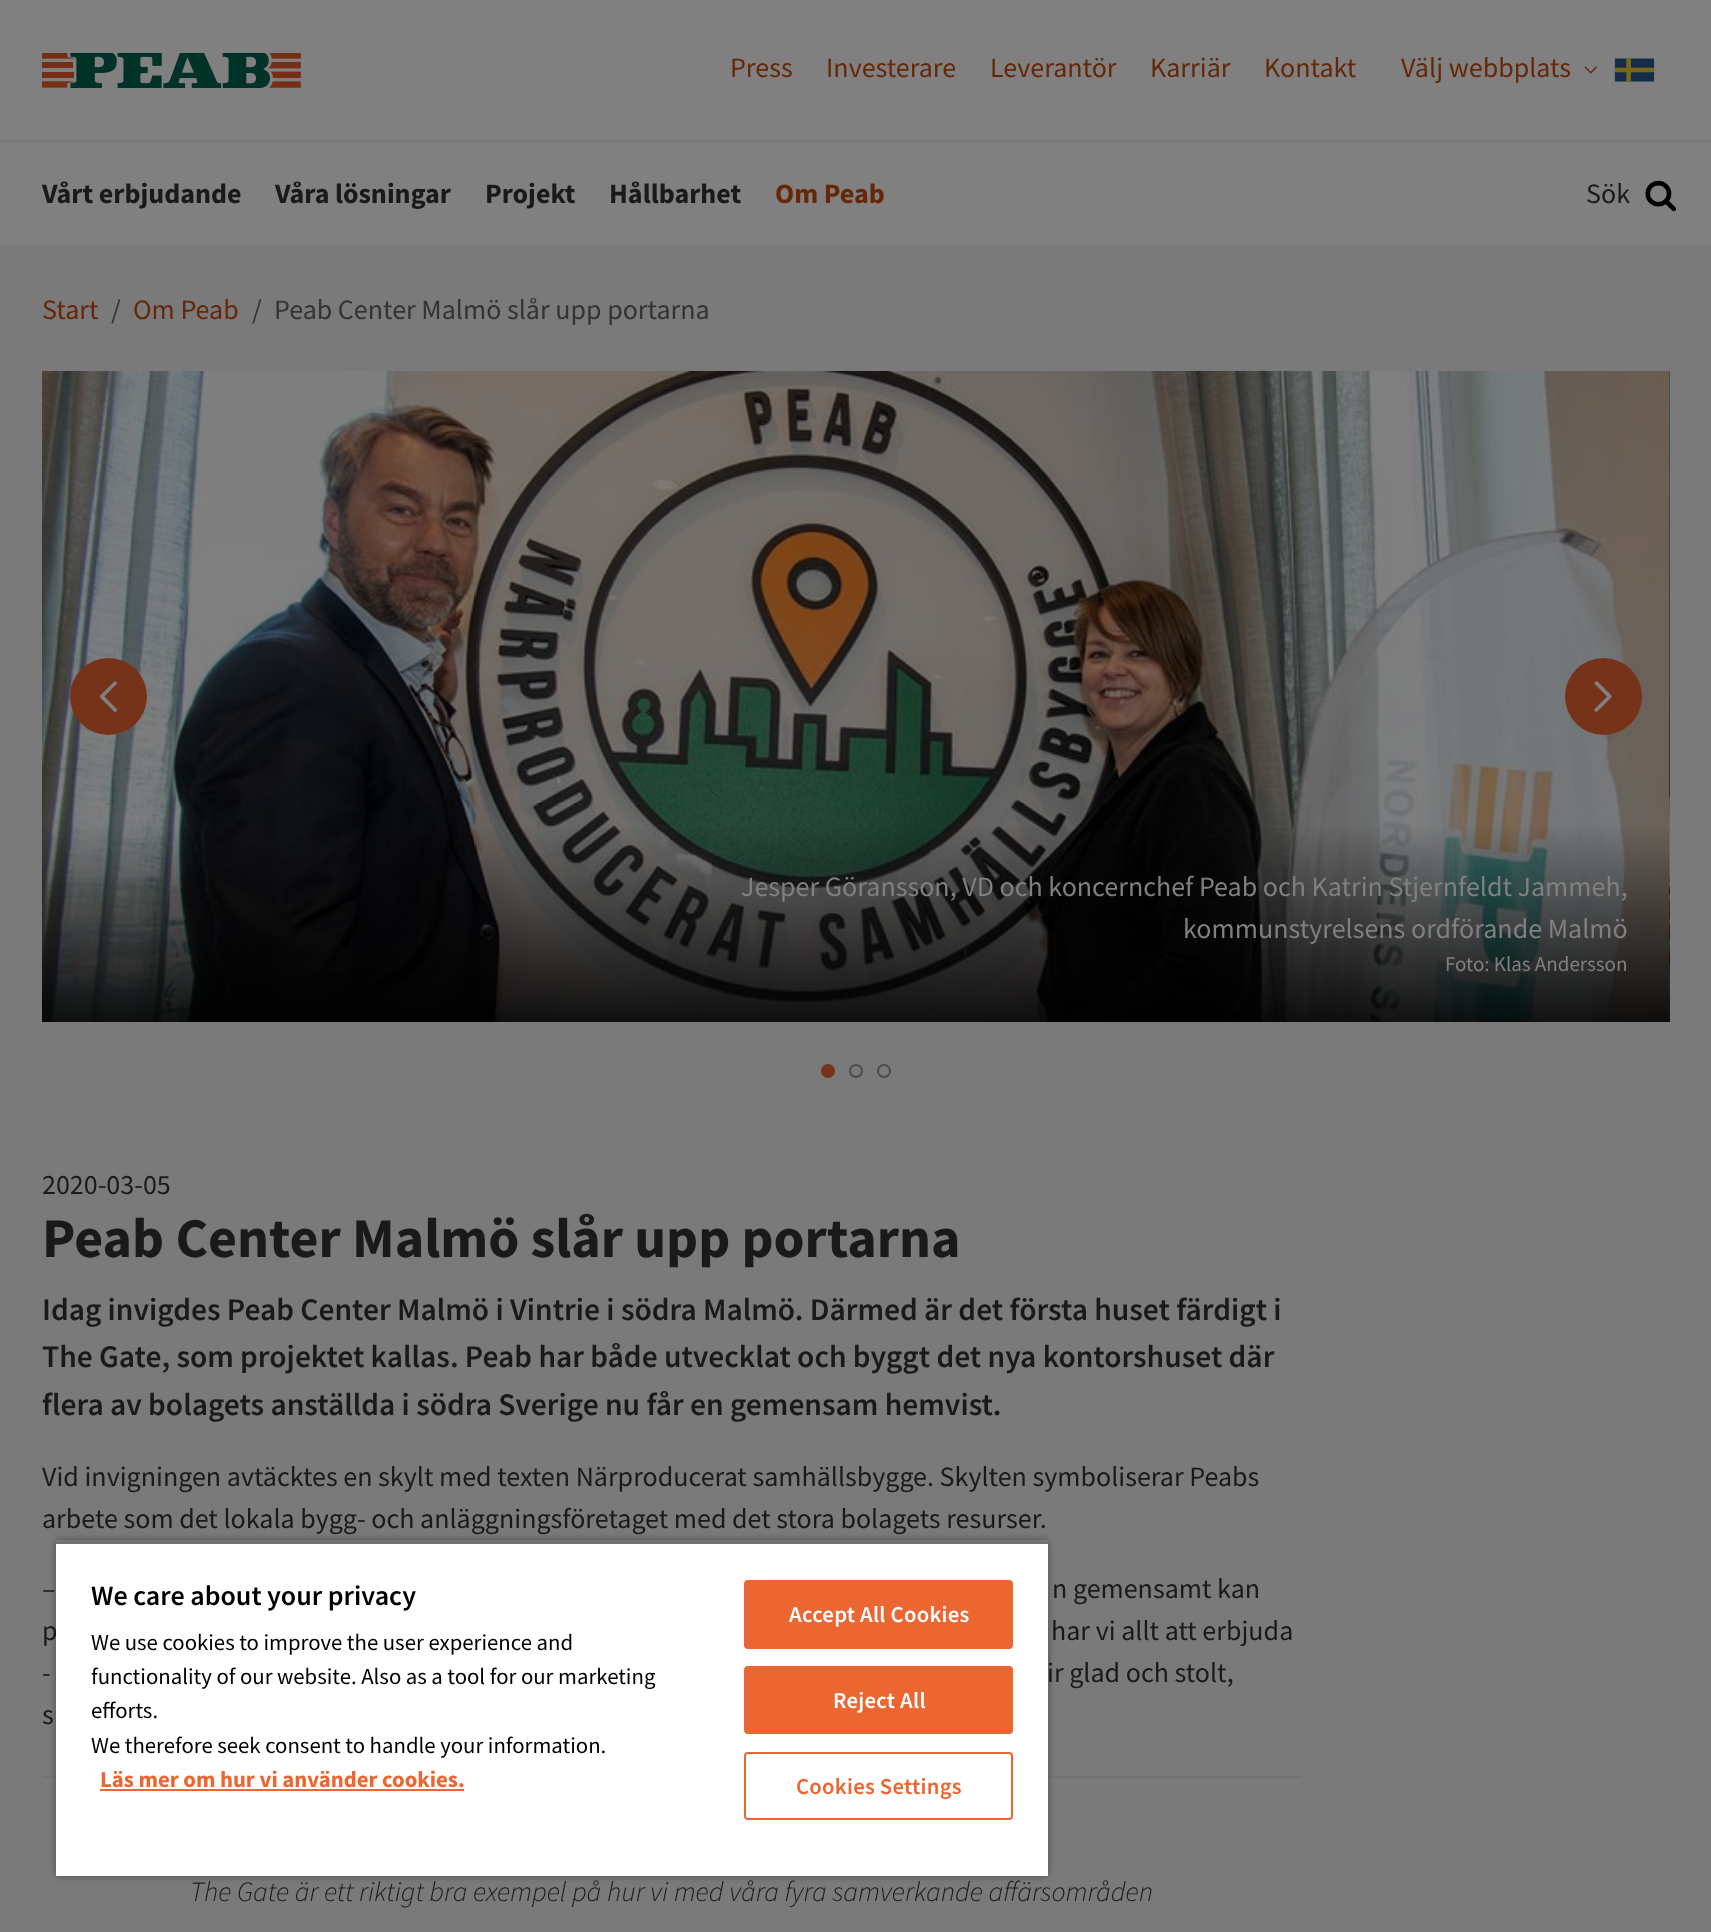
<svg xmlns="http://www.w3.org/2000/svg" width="1711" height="1932">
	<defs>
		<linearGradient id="g1" gradientUnits="userSpaceOnUse" x1="856" y1="1022" x2="856" y2="823"><stop offset="0" stop-color="#000000" stop-opacity="0.85" /><stop offset="1" stop-color="#000000" stop-opacity="0" /></linearGradient>
		<clipPath id="clip1"><path d="M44 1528H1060V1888H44ZM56 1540H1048V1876H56Z" clip-rule="evenodd" /></clipPath>
		<clipPath id="clip2"><rect x="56" y="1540" width="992" height="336" /></clipPath>
	</defs>
	<rect width="100%" height="100%" fill="#7A7A7A" />
	<rect x="0" y="0" width="1711" height="245" fill="#808080" />
	<image x="42" y="53" width="259" height="35" href="assets/img1.png" />
	<g font-family="Source Sans Pro" font-size="28" fill="#662709">
		<text x="730" y="77">Press</text>
		<text x="826" y="77">Investerare</text>
		<text x="990" y="77">Leverantör</text>
		<text x="1150" y="77">Karriär</text>
		<text x="1264" y="77">Kontakt</text>
		<text x="1401" y="77">Välj webbplats</text>
	</g>
	<image x="1584" y="66" width="13" height="8" href="assets/img2.png" />
	<image x="1614" y="58" width="41" height="24" href="assets/img3.png" />
	<rect x="0" y="140" width="1711" height="2" fill="#7A7A7A" />
	<g font-family="Source Sans Pro" font-size="28" font-weight="700" fill="#1A1A1A">
		<text x="42" y="203">Vårt erbjudande</text>
		<text x="275" y="203">Våra lösningar</text>
		<text x="485" y="203">Projekt</text>
		<text x="609" y="203">Hållbarhet</text>
	</g>
	<text x="775" y="203" font-family="Source Sans Pro" font-size="28" font-weight="700" fill="#662709">Om Peab</text>
	<text x="1586" y="203" font-family="Source Sans Pro" font-size="28" fill="#1A1A1A">Sök</text>
	<image x="1645" y="180" width="31" height="32" href="assets/img4.png" />
	<text x="42" y="319" font-family="Source Sans Pro" font-size="28" fill="#662709">Start</text>
	<text x="111" y="319" font-family="Source Sans Pro" font-size="28" fill="#333333">/</text>
	<text x="133" y="319" font-family="Source Sans Pro" font-size="28" fill="#662709">Om Peab</text>
	<g font-family="Source Sans Pro" font-size="28" fill="#333333">
		<text x="252" y="319">/</text>
		<text x="274" y="319">Peab Center Malmö slår upp portarna</text>
	</g>
	<image x="42" y="371" width="1627" height="651" href="assets/img7.png" />
	<circle cx="108.5" cy="696.5" r="38.5" fill="#763319" />
	<image x="99" y="681" width="18" height="31" href="assets/img5.png" />
	<circle cx="1603.5" cy="696.5" r="38.5" fill="#763319" />
	<image x="1594" y="681" width="18" height="31" href="assets/img6.png" />
	<image x="1669" y="371" width="1" height="651" href="assets/img8.png" />
	<rect x="42" y="828" width="1628" height="194" fill="url(#g1)" />
	<g font-family="Source Sans Pro" font-size="28" fill="#808080">
		<text x="741" y="896">Jesper Göransson, VD och koncernchef Peab och Katrin Stjernfeldt Jammeh,</text>
		<text x="1183" y="938">kommunstyrelsens ordförande Malmö</text>
	</g>
	<text x="1445" y="971" font-family="Source Sans Pro" font-size="21" fill="#808080">Foto: Klas Andersson</text>
	<circle cx="828" cy="1071" r="6" fill="#763319" stroke="#763319" stroke-width="2" />
	<circle cx="856" cy="1071" r="6" fill="none" stroke="#4D4D4D" stroke-width="2" />
	<circle cx="884" cy="1071" r="6" fill="none" stroke="#4D4D4D" stroke-width="2" />
	<text x="42" y="1194" font-family="Source Sans Pro" font-size="28" fill="#1A1A1A">2020-03-05</text>
	<text x="42" y="1257" font-family="Source Sans Pro" font-size="56" font-weight="700" fill="#1A1A1A">Peab Center Malmö slår upp portarna</text>
	<g font-family="Source Sans Pro" font-size="31.5" font-weight="600" fill="#1A1A1A">
		<text x="42" y="1320">Idag invigdes Peab Center Malmö i Vintrie i södra Malmö. Därmed är det första huset färdigt i</text>
		<text x="42" y="1367">The Gate, som projektet kallas. Peab har både utvecklat och byggt det nya kontorshuset där</text>
		<text x="42" y="1415">flera av bolagets anställda i södra Sverige nu får en gemensam hemvist.</text>
	</g>
	<g font-family="Source Sans Pro" font-size="28" fill="#1A1A1A">
		<text x="42" y="1486">Vid invigningen avtäcktes en skylt med texten Närproducerat samhällsbygge. Skylten symboliserar Peabs</text>
		<text x="42" y="1528">arbete som det lokala bygg- och anläggningsföretaget med det stora bolagets resurser.</text>
		<text x="42" y="1598">–</text>
		<text x="1052" y="1598">n gemensamt kan</text>
		<text x="42" y="1640">p</text>
		<text x="1051" y="1640">har vi allt att erbjuda</text>
		<text x="42" y="1682">-</text>
		<text x="1047" y="1682">ir glad och stolt,</text>
		<text x="42" y="1724">s</text>
	</g>
	<rect x="42" y="1776" width="1260" height="2" fill="#737373" />
	<text x="190" y="1901" font-family="Source Sans Pro" font-size="28" font-weight="300" font-style="italic" fill="#1A1A1A">The Gate är ett riktigt bra exempel på hur vi med våra fyra samverkande affärsområden</text>
	<g clip-path="url(#clip1)">
		<rect x="56" y="1540" width="992" height="336" fill="#000000" fill-opacity="0.35" filter="blur(3.5px)" />
	</g>
	<g clip-path="url(#clip2)">
		<rect x="56" y="1544" width="992" height="332" fill="#000000" fill-opacity="0.2" filter="blur(3.5px)" />
	</g>
	<rect x="56" y="1544" width="992" height="332" fill="#FFFFFF" />
	<text x="91" y="1605" font-family="Source Sans Pro" font-size="28" font-weight="600" fill="#000000">We care about your privacy</text>
	<g font-family="Source Sans Pro" font-size="22.75" fill="#000000">
		<text x="91" y="1650">We use cookies to improve the user experience and</text>
		<text x="91" y="1684">functionality of our website. Also as a tool for our marketing</text>
		<text x="91" y="1718">efforts.</text>
		<text x="91" y="1753">We therefore seek consent to handle your information.</text>
	</g>
	<text x="100" y="1787" font-family="Source Sans Pro" font-size="22.75" font-weight="700" fill="#EB6631">Läs mer om hur vi använder cookies.</text>
	<rect x="100" y="1789" width="364" height="2" fill="#EB6631" />
	<rect x="745" y="1581" width="267" height="67" rx="3" fill="#EB6631" stroke="#EB6631" stroke-width="2" />
	<text x="789" y="1622" font-family="Source Sans Pro" font-size="22.75" font-weight="600" letter-spacing="0.25" fill="#FFFFFF">Accept All Cookies</text>
	<rect x="745" y="1667" width="267" height="66" rx="3" fill="#EB6631" stroke="#EB6631" stroke-width="2" />
	<text x="833" y="1708" font-family="Source Sans Pro" font-size="22.75" font-weight="600" letter-spacing="0.25" fill="#FFFFFF">Reject All</text>
	<rect x="745" y="1753" width="267" height="66" rx="3" fill="none" stroke="#EB6631" stroke-width="2" />
	<text x="796" y="1794" font-family="Source Sans Pro" font-size="22.75" font-weight="600" letter-spacing="0.25" fill="#EB6631">Cookies Settings</text>
</svg>
